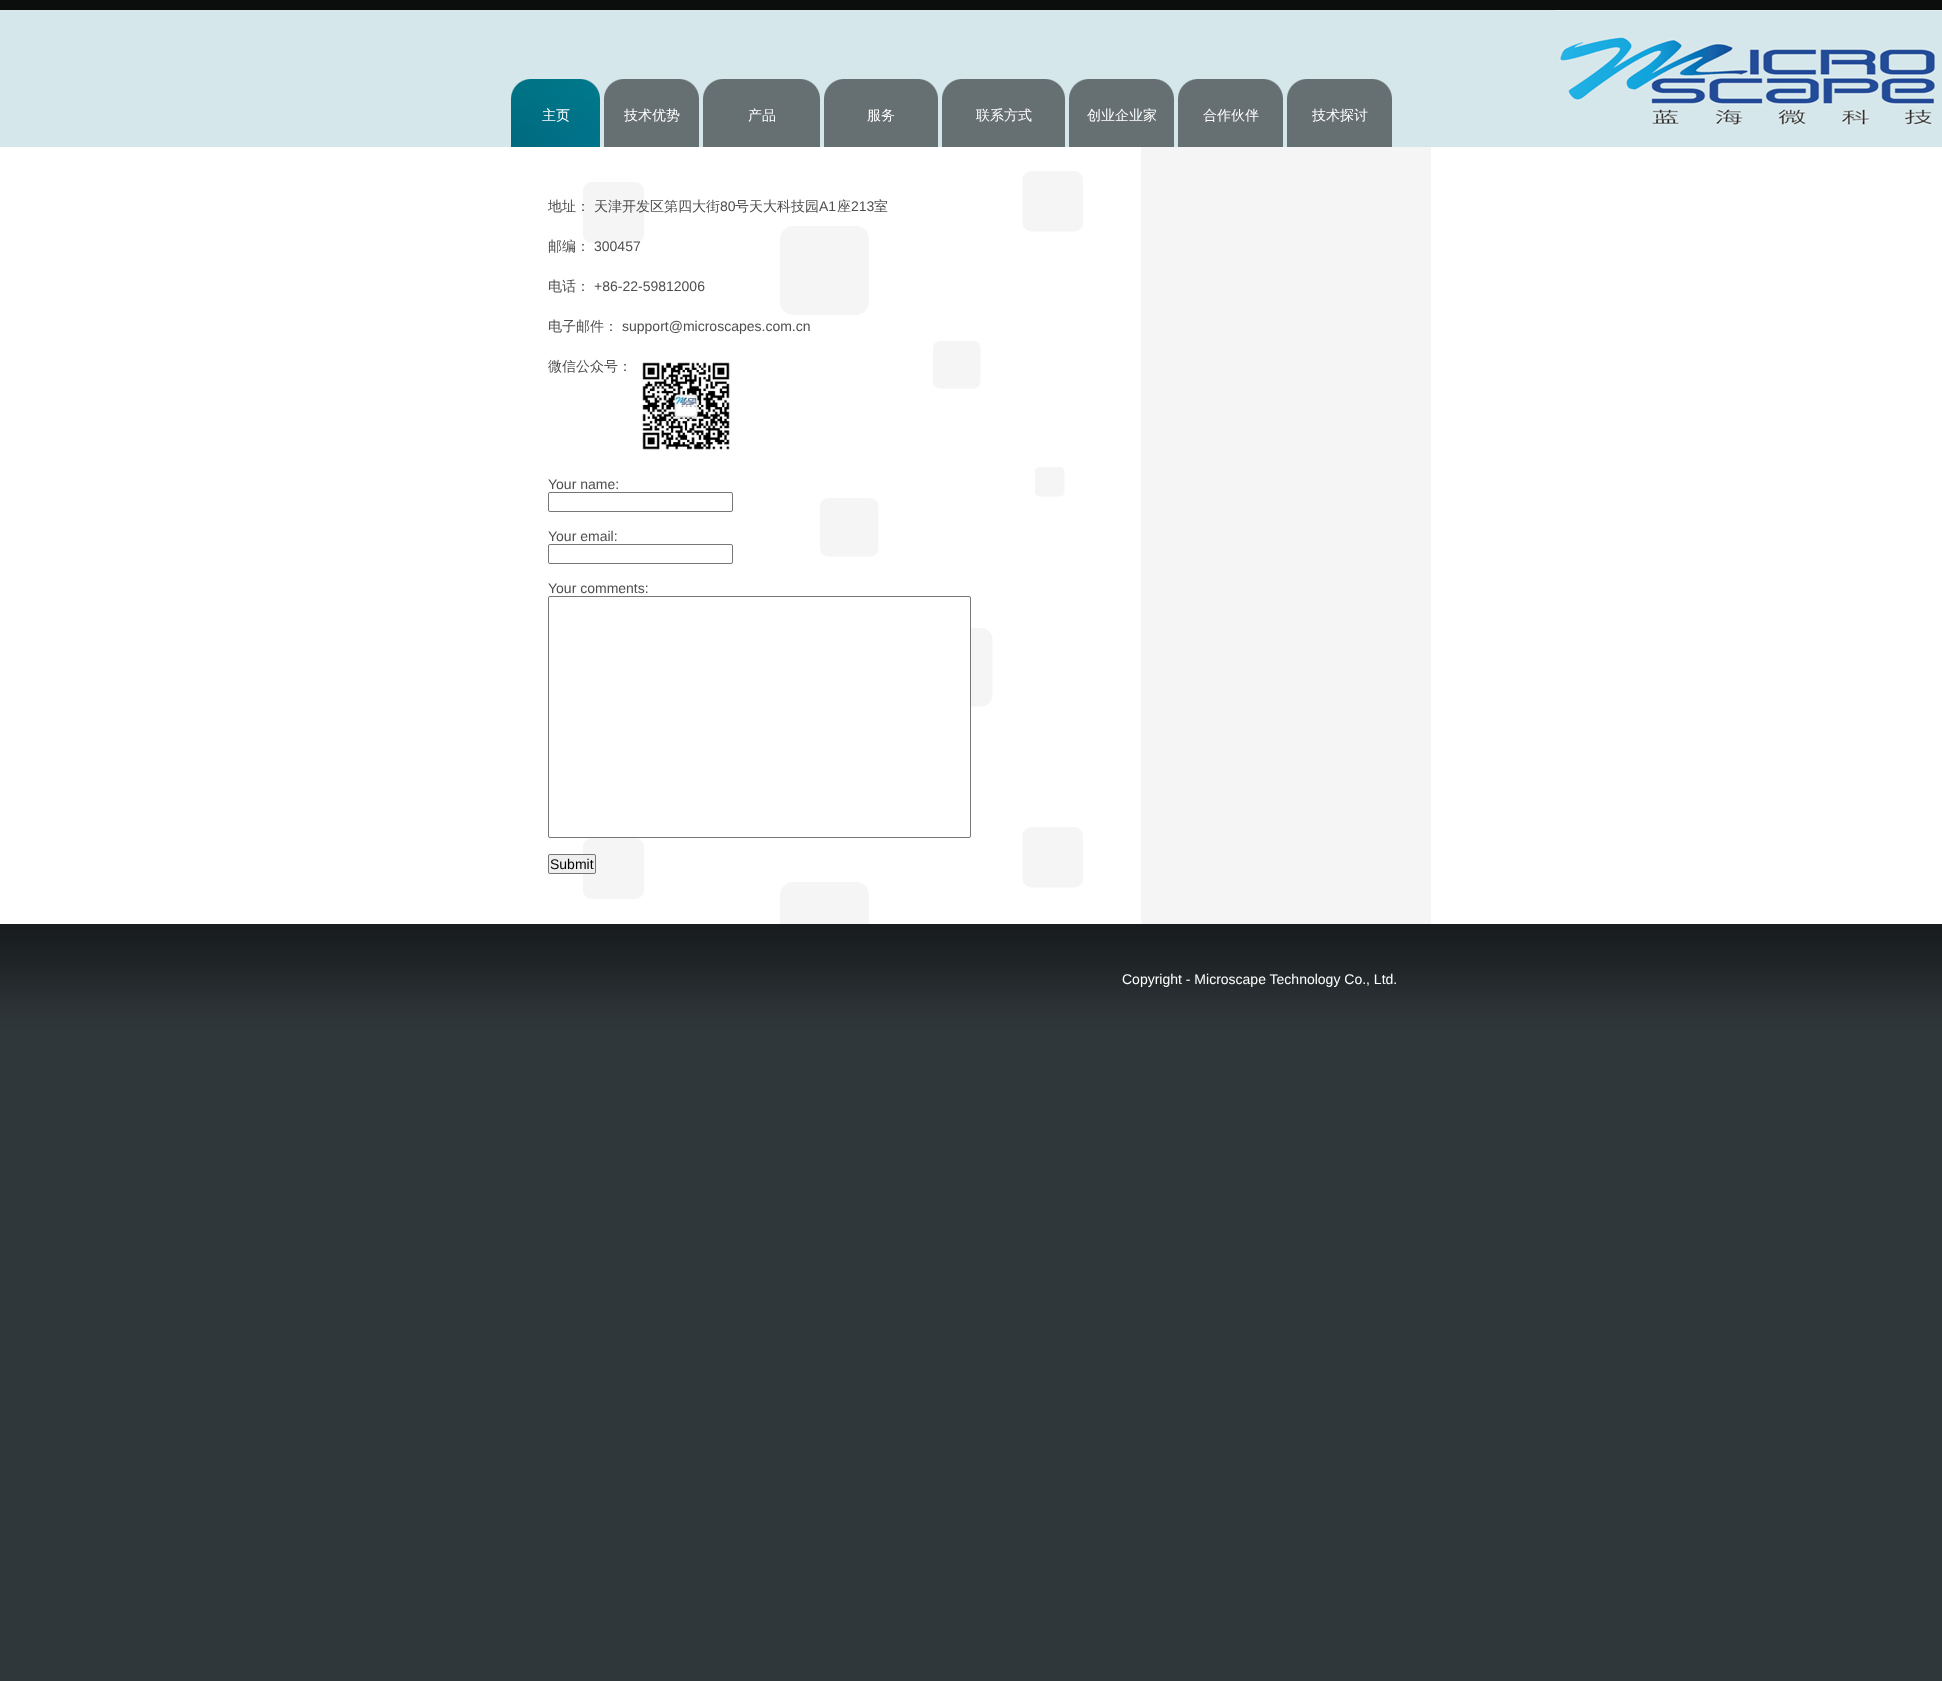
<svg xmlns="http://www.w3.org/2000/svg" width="1942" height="1681">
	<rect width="100%" height="100%" fill="#2F373A" />
	<rect x="0" y="0" width="1942" height="10" fill="#0C0E0E" />
	<rect x="0" y="147" width="1942" height="777" fill="#FFFFFF" />
	<rect x="0" y="10" width="1942" height="137" fill="#D6E7EB" />
	<image x="0" y="924" width="1942" height="110" href="assets/img1.png" />
	<image x="1556" y="10" width="386" height="116" href="assets/img2.png" />
	<image x="511" y="79" width="89" height="68" href="assets/img3.png" />
	<text x="542" y="120" font-family="WenQuanYi Zen Hei" font-size="14" font-weight="500" fill="#FFFFFF">主页</text>
	<image x="604" y="79" width="95" height="68" href="assets/img4.png" />
	<text x="624" y="120" font-family="WenQuanYi Zen Hei" font-size="14" font-weight="500" fill="#FFFFFF">技术优势</text>
	<image x="703" y="79" width="117" height="68" href="assets/img5.png" />
	<text x="748" y="120" font-family="WenQuanYi Zen Hei" font-size="14" font-weight="500" fill="#FFFFFF">产品</text>
	<image x="824" y="79" width="114" height="68" href="assets/img6.png" />
	<text x="867" y="120" font-family="WenQuanYi Zen Hei" font-size="14" font-weight="500" fill="#FFFFFF">服务</text>
	<image x="942" y="79" width="123" height="68" href="assets/img7.png" />
	<text x="976" y="120" font-family="WenQuanYi Zen Hei" font-size="14" font-weight="500" fill="#FFFFFF">联系方式</text>
	<image x="1069" y="79" width="105" height="68" href="assets/img8.png" />
	<text x="1087" y="120" font-family="WenQuanYi Zen Hei" font-size="14" font-weight="500" fill="#FFFFFF">创业企业家</text>
	<image x="1178" y="79" width="105" height="68" href="assets/img8.png" />
	<text x="1203" y="120" font-family="WenQuanYi Zen Hei" font-size="14" font-weight="500" fill="#FFFFFF">合作伙伴</text>
	<image x="1287" y="79" width="105" height="68" href="assets/img8.png" />
	<text x="1312" y="120" font-family="WenQuanYi Zen Hei" font-size="14" font-weight="500" fill="#FFFFFF">技术探讨</text>
	<image x="583" y="171" width="500" height="753" href="assets/img9.png" />
	<rect x="1141" y="147" width="290" height="777" fill="#F5F5F5" />
	<g font-family="WenQuanYi Zen Hei" font-size="14" font-weight="500" fill="#4E4E4E">
		<text x="548" y="211">地址：</text>
		<text x="594" y="211">天津开发区第四大街</text>
	</g>
	<text x="720" y="211" font-family="Liberation Sans" font-size="14" fill="#4E4E4E">80</text>
	<text x="735" y="211" font-family="WenQuanYi Zen Hei" font-size="14" font-weight="500" fill="#4E4E4E">号天大科技园</text>
	<text x="819" y="211" font-family="Liberation Sans" font-size="14" fill="#4E4E4E">A1</text>
	<text x="837" y="211" font-family="WenQuanYi Zen Hei" font-size="14" font-weight="500" fill="#4E4E4E">座</text>
	<text x="851" y="211" font-family="Liberation Sans" font-size="14" fill="#4E4E4E">213</text>
	<g font-family="WenQuanYi Zen Hei" font-size="14" font-weight="500" fill="#4E4E4E">
		<text x="874" y="211">室</text>
		<text x="548" y="251">邮编：</text>
	</g>
	<text x="594" y="251" font-family="Liberation Sans" font-size="14" fill="#4E4E4E">300457</text>
	<text x="548" y="291" font-family="WenQuanYi Zen Hei" font-size="14" font-weight="500" fill="#4E4E4E">电话：</text>
	<text x="594" y="291" font-family="Liberation Sans" font-size="14" fill="#4E4E4E">+86-22-59812006</text>
	<text x="548" y="331" font-family="WenQuanYi Zen Hei" font-size="14" font-weight="500" fill="#4E4E4E">电子邮件：</text>
	<text x="622" y="331" font-family="Liberation Sans" font-size="14" fill="#4E4E4E">support@microscapes.com.cn</text>
	<text x="548" y="371" font-family="WenQuanYi Zen Hei" font-size="14" font-weight="500" fill="#4E4E4E">微信公众号：</text>
	<image x="642" y="362" width="88" height="88" href="assets/img10.png" />
	<text x="548" y="489" font-family="Liberation Sans" font-size="14" fill="#4E4E4E">Your name:</text>
	<rect x="548.5" y="492.5" width="184" height="19" rx="1.5" fill="none" stroke="#767676" />
	<text x="548" y="541" font-family="Liberation Sans" font-size="14" fill="#4E4E4E">Your email:</text>
	<rect x="548.5" y="544.5" width="184" height="19" rx="1.5" fill="none" stroke="#767676" />
	<text x="548" y="593" font-family="Liberation Sans" font-size="14" fill="#4E4E4E">Your comments:</text>
	<rect x="548.5" y="596.5" width="422" height="241" rx="1.5" fill="#FFFFFF" stroke="#767676" />
	<rect x="548.5" y="854.5" width="47" height="19" rx="1.5" fill="#EFEFEF" stroke="#767676" />
	<text x="550" y="869" font-family="Liberation Sans" font-size="14" fill="#000000">Submit</text>
	<text x="1122" y="984" font-family="Liberation Sans" font-size="14" fill="#FFFFFF">Copyright - Microscape Technology Co., Ltd.</text>
</svg>
